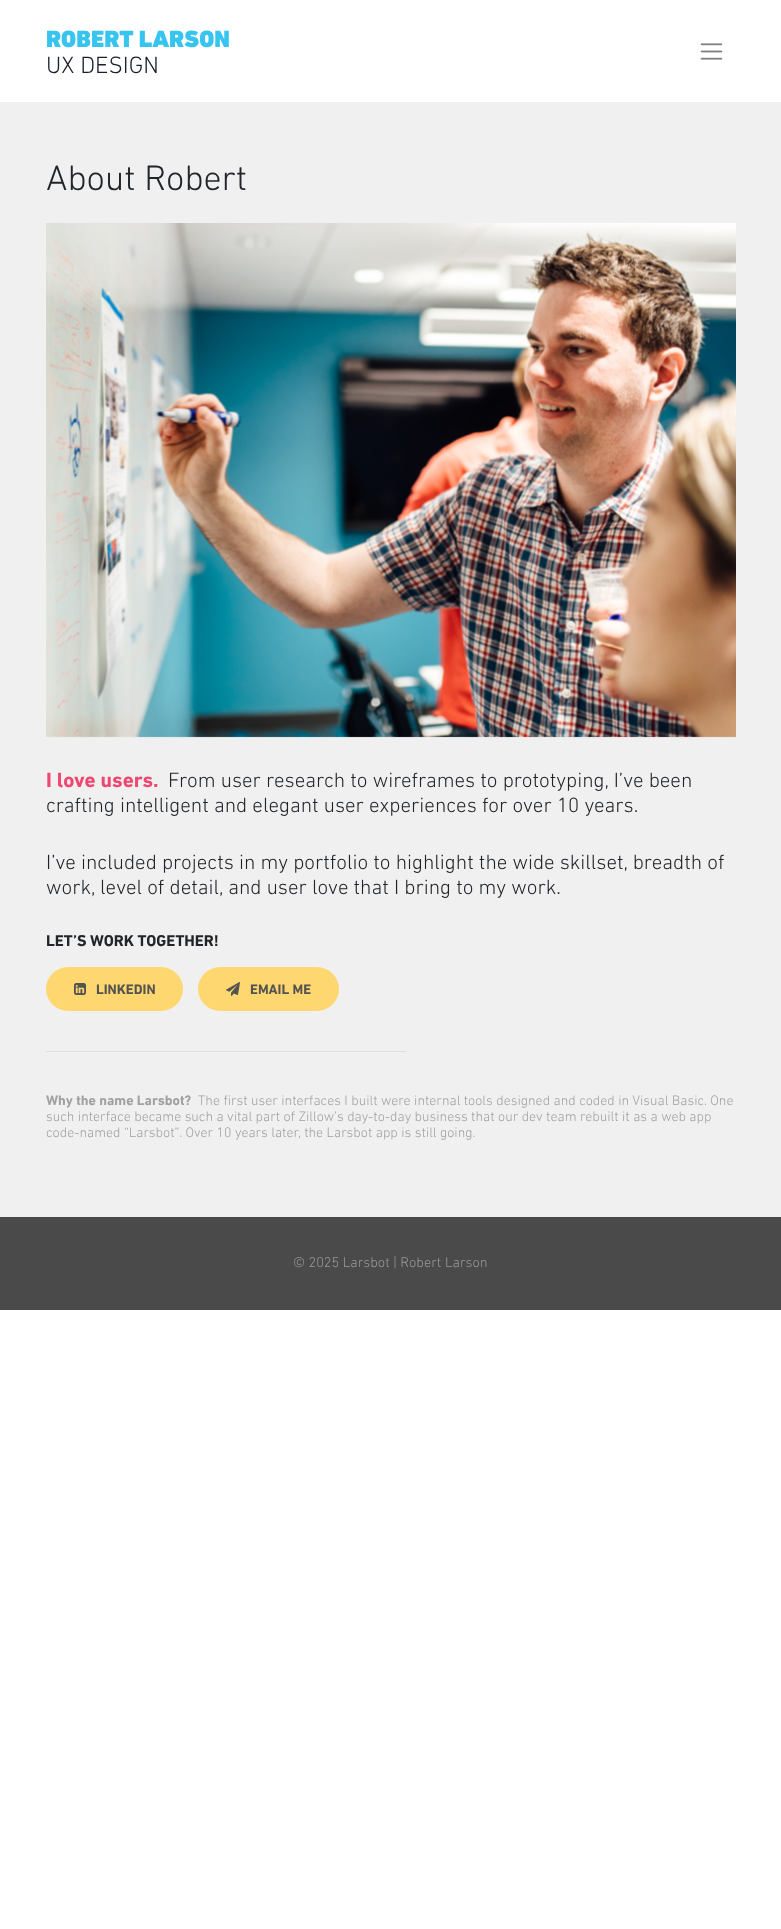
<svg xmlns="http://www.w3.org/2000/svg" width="781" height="1929">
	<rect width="100%" height="100%" fill="#FFFFFF" />
	<text x="46" y="47" font-family="DIN Next" font-size="24" font-weight="900" fill="#37C4EF">ROBERT LARSON</text>
	<text x="46" y="73" font-family="DIN Next" font-size="24" font-weight="300" fill="#191F2D">UX DESIGN</text>
	<image x="700" y="43" width="23" height="17" href="assets/img1.png" />
	<rect x="0" y="102" width="781" height="1115" fill="#F0F0F0" />
	<text x="46" y="190" font-family="DIN Next" font-size="36" font-weight="300" fill="#212529">About Robert</text>
	<image x="46" y="223" width="690" height="515" href="assets/img2.png" />
	<text x="46" y="787" font-family="DIN Next" font-size="21" font-weight="700" fill="#EF476F">I love users.</text>
	<g font-family="DIN Next" font-size="21" font-weight="300" fill="#212529">
		<text x="168" y="787">From user research to wireframes to prototyping, I’ve been</text>
		<text x="46" y="812">crafting intelligent and elegant user experiences for over 10 years.</text>
		<text x="46" y="869">I’ve included projects in my portfolio to highlight the wide skillset, breadth of</text>
		<text x="46" y="894">work, level of detail, and user love that I bring to my work.</text>
	</g>
	<text x="46" y="946" font-family="DIN Next" font-size="16" font-weight="700" fill="#212529">LET’S WORK TOGETHER!</text>
	<rect x="46" y="967" width="137" height="44" rx="22" fill="#FFD771" />
	<image x="74" y="983" width="12" height="12" href="assets/img3.png" />
	<text x="96" y="994" font-family="DIN Next" font-size="14" font-weight="700" fill="#535351">LINKEDIN</text>
	<rect x="198" y="967" width="141" height="44" rx="22" fill="#FFD771" />
	<image x="226" y="982" width="14" height="14" href="assets/img4.png" />
	<text x="250" y="994" font-family="DIN Next" font-size="14" font-weight="700" fill="#535351">EMAIL ME</text>
	<rect x="46" y="1051" width="360" height="1" fill="#E0E0E0" />
	<text x="46" y="1105" font-family="DIN Next" font-size="14" font-weight="700" fill="#A1A1A1">Why the name Larsbot?</text>
	<g font-family="DIN Next" font-size="14" font-weight="300" fill="#A1A1A1">
		<text x="198" y="1105">The first user interfaces I built were internal tools designed and coded in Visual Basic. One</text>
		<text x="46" y="1121">such interface became such a vital part of Zillow’s day-to-day business that our dev team rebuilt it as a web app</text>
		<text x="46" y="1137">code-named “Larsbot”. Over 10 years later, the Larsbot app is still going.</text>
	</g>
	<rect x="0" y="1217" width="781" height="93" fill="#4A4A4A" />
	<text x="293" y="1267" font-family="DIN Next" font-size="14.4" font-weight="300" fill="#99979C">© 2025 Larsbot | Robert Larson</text>
</svg>
